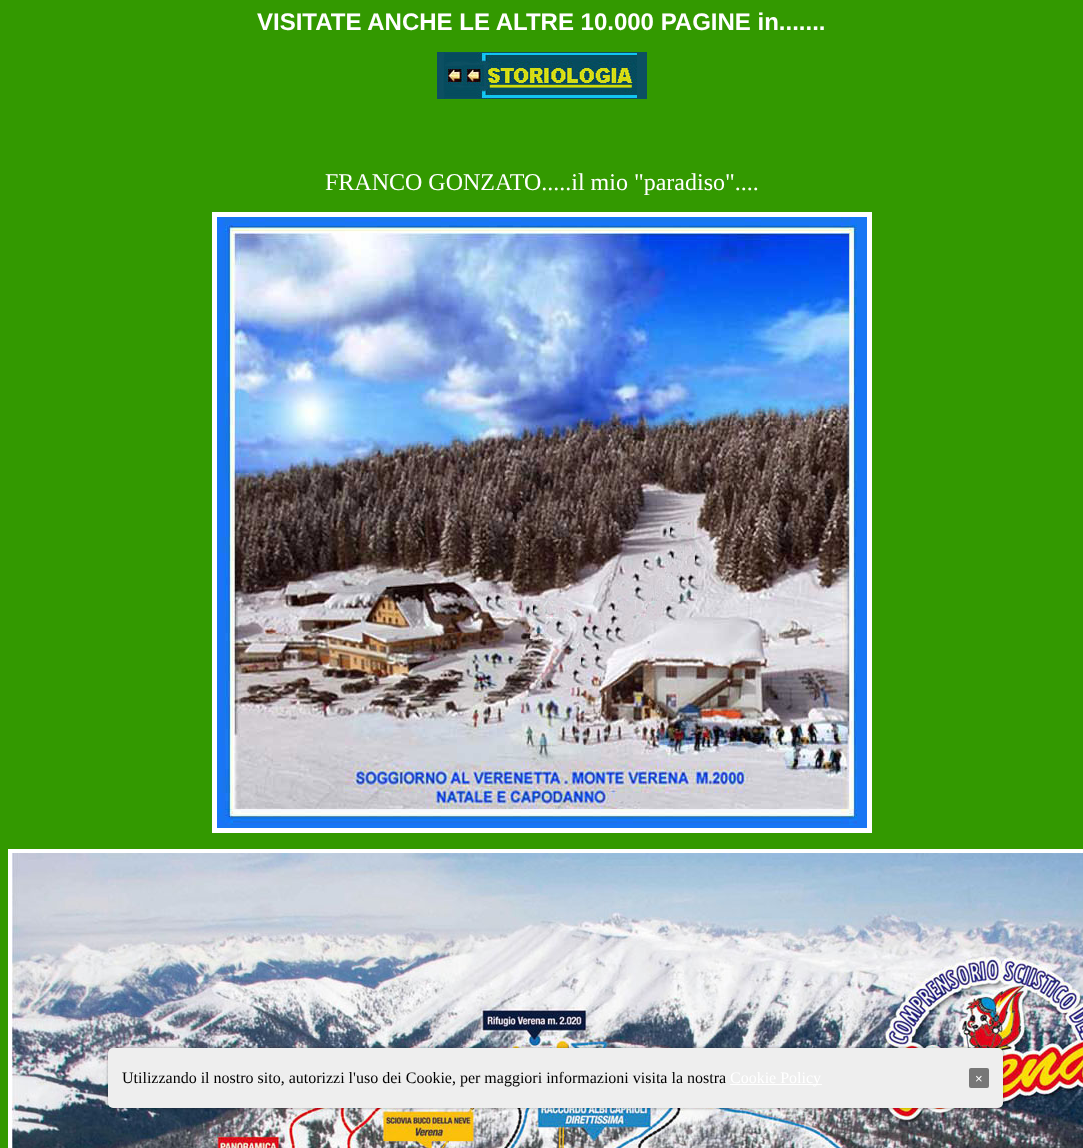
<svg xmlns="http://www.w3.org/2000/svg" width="1083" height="1148">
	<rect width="100%" height="100%" fill="#339900" />
	<text x="257" y="30" font-family="Liberation Sans" font-size="24" font-weight="700" fill="#FFFFFF">VISITATE ANCHE LE ALTRE 10.000 PAGINE in.......</text>
	<image x="437" y="52" width="210" height="47" href="assets/img1.png" />
	<text x="325" y="190" font-family="Liberation Serif" font-size="24" fill="#FFFFFF">FRANCO GONZATO.....il mio "paradiso"....</text>
	<rect x="214.5" y="214.5" width="655" height="616" fill="none" stroke="#FFFFFF" stroke-width="5" />
	<image x="217" y="217" width="650" height="611" href="assets/img2.png" />
	<rect x="10" y="851" width="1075" height="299" fill="none" stroke="#FFFFFF" stroke-width="4" />
	<image x="12" y="853" width="1071" height="295" href="assets/img3.png" />
	<rect x="107" y="1047" width="897" height="62" rx="6" fill="#000000" fill-opacity="0.2" filter="blur(1px)" />
	<rect x="108" y="1048" width="895" height="60" rx="5" fill="#EEEEEE" />
	<text x="122" y="1083" font-family="Liberation Serif" font-size="16" fill="#000000">Utilizzando il nostro sito, autorizzi l'uso dei Cookie, per maggiori informazioni visita la nostra</text>
	<rect x="730" y="1084" width="92" height="1" fill="#FFFFFF" />
	<text x="730" y="1083" font-family="Liberation Serif" font-size="16" fill="#FFFFFF">Cookie Policy</text>
	<rect x="969" y="1068" width="20" height="20" rx="2" fill="#777777" />
	<text x="975" y="1083" font-family="Liberation Sans" font-size="13" fill="#FFFFFF">×</text>
</svg>
